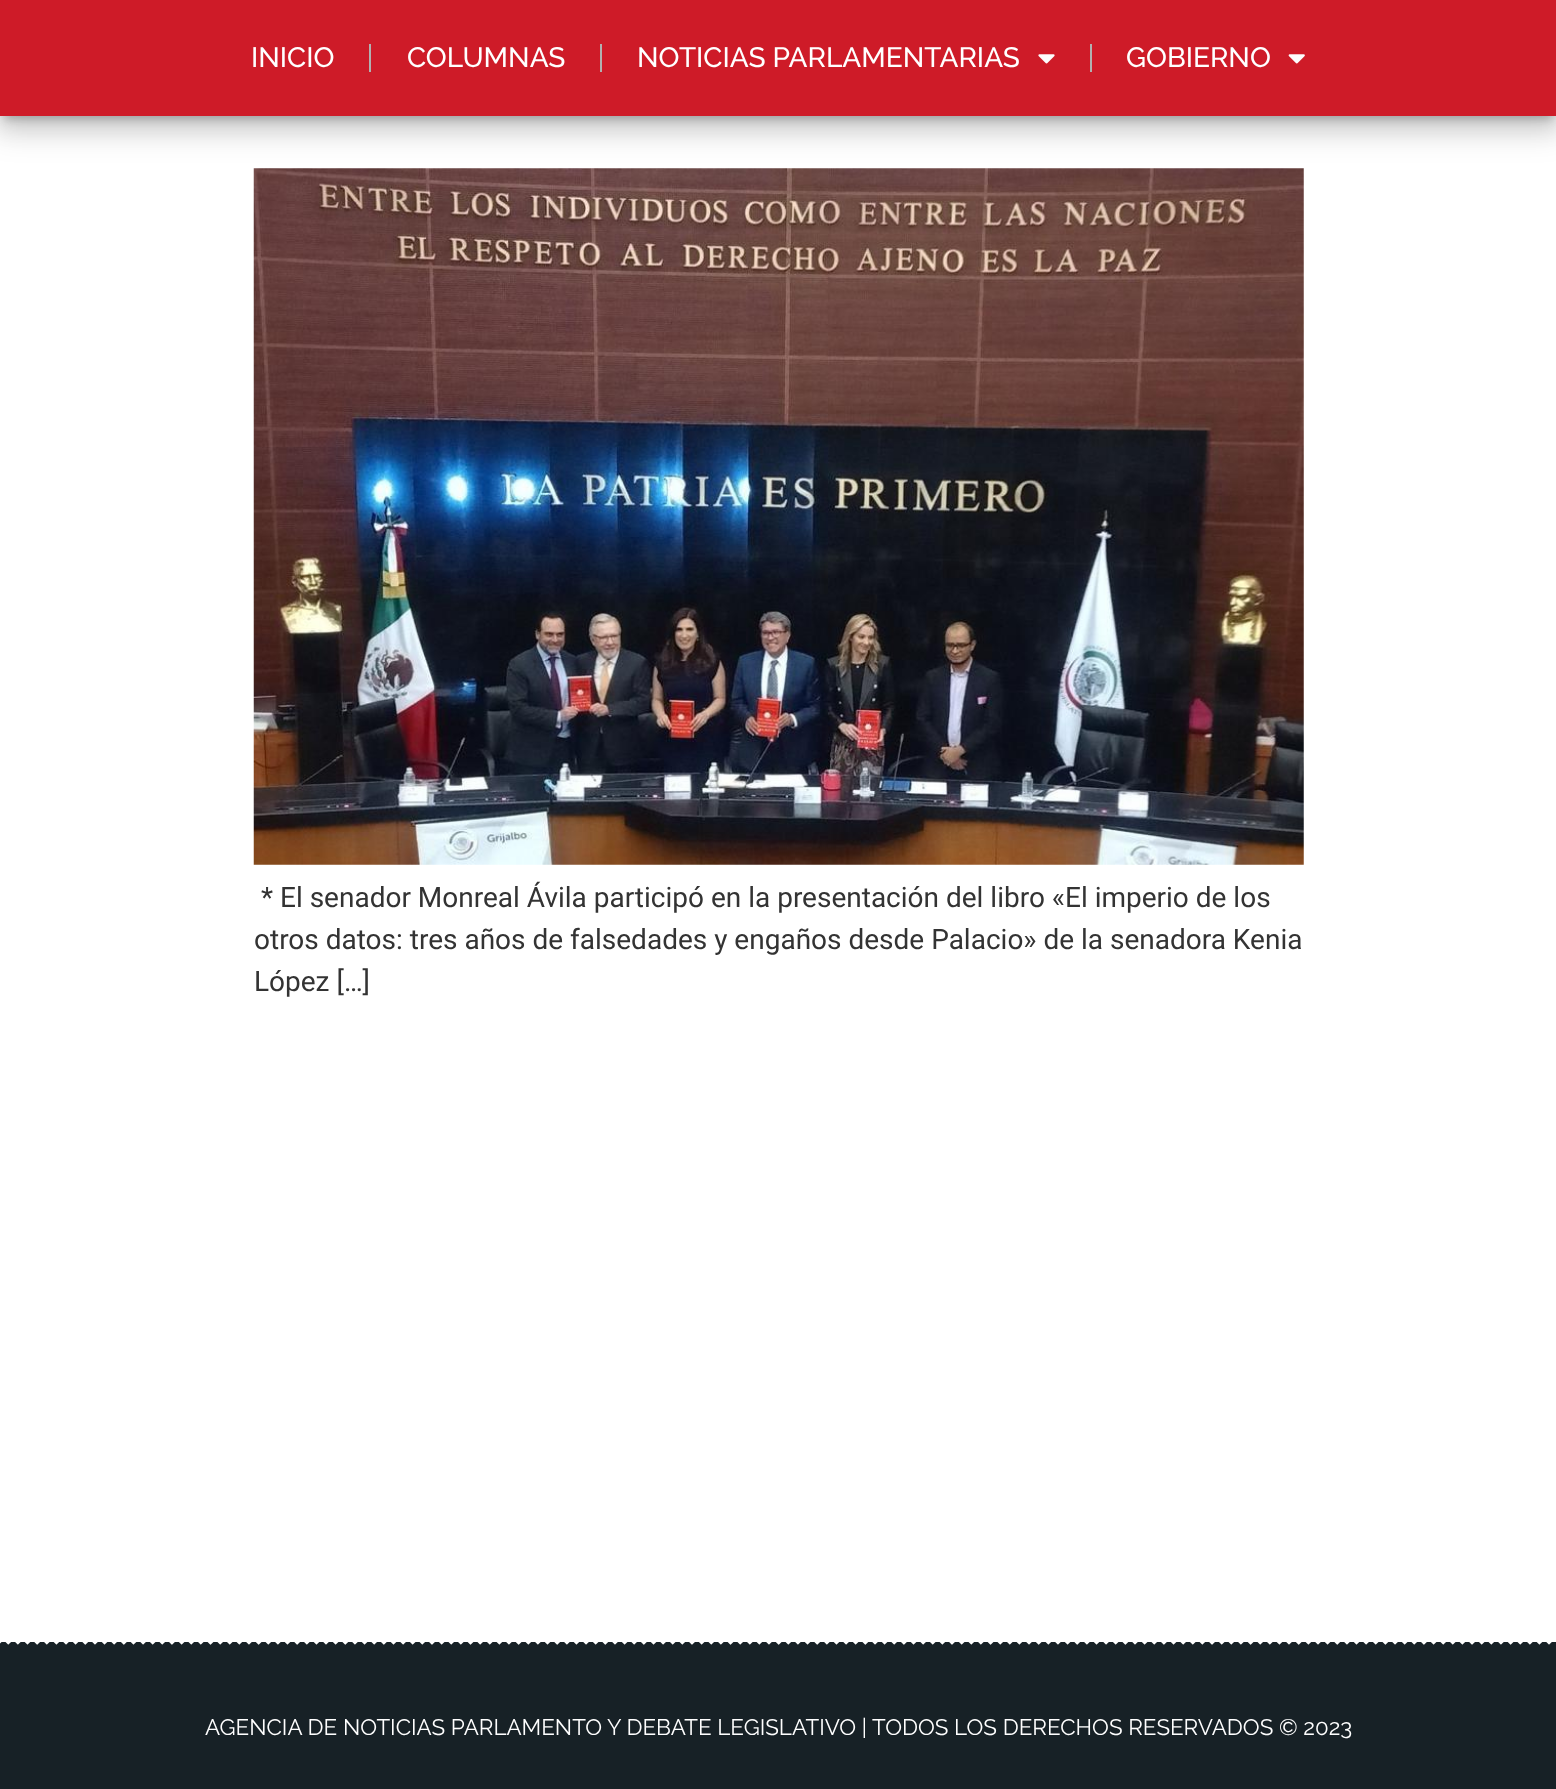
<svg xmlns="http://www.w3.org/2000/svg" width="1556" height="1789">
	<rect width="100%" height="100%" fill="#FFFFFF" />
	<rect x="5" y="14" width="1547" height="105" fill="#000000" fill-opacity="0.2" filter="blur(4.5px)" />
	<rect x="-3" y="2" width="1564" height="122" fill="#000000" fill-opacity="0.12" filter="blur(12px)" />
	<image x="253" y="168" width="1051" height="697" href="assets/img3.png" />
	<rect x="-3" y="11" width="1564" height="122" fill="#000000" fill-opacity="0.14" filter="blur(15px)" />
	<rect x="0" y="0" width="1556" height="116" fill="#CE1B28" />
	<text x="251" y="67" font-family="Raleway" font-size="28" font-weight="500" fill="#FFFFFF">INICIO</text>
	<rect x="369" y="44" width="2" height="28" fill="#B1B1B1" />
	<text x="407" y="67" font-family="Raleway" font-size="28" font-weight="500" fill="#FFFFFF">COLUMNAS</text>
	<rect x="600" y="44" width="2" height="28" fill="#B1B1B1" />
	<text x="637" y="67" font-family="Raleway" font-size="28" font-weight="500" fill="#FFFFFF">NOTICIAS PARLAMENTARIAS</text>
	<image x="1038" y="54" width="17" height="10" href="assets/img1.png" />
	<rect x="1090" y="44" width="2" height="28" fill="#B1B1B1" />
	<text x="1126" y="67" font-family="Raleway" font-size="28" font-weight="500" fill="#FFFFFF">GOBIERNO</text>
	<image x="1288" y="54" width="17" height="10" href="assets/img2.png" />
	<g font-family="Roboto" font-size="28" fill="#333333">
		<text x="261" y="907">* El senador Monreal Ávila participó en la presentación del libro «El imperio de los</text>
		<text x="254" y="949">otros datos: tres años de falsedades y engaños desde Palacio» de la senadora Kenia</text>
		<text x="254" y="991">López […]</text>
	</g>
	<rect x="0" y="1642" width="1556" height="147" fill="#172126" />
	<image x="0" y="1642" width="1552" height="3" href="assets/img4.png" />
	<text x="205" y="1735" font-family="Raleway" font-size="22.4" fill="#FFFFFF">AGENCIA DE NOTICIAS PARLAMENTO Y DEBATE LEGISLATIVO | TODOS LOS DERECHOS RESERVADOS © 2023</text>
</svg>
